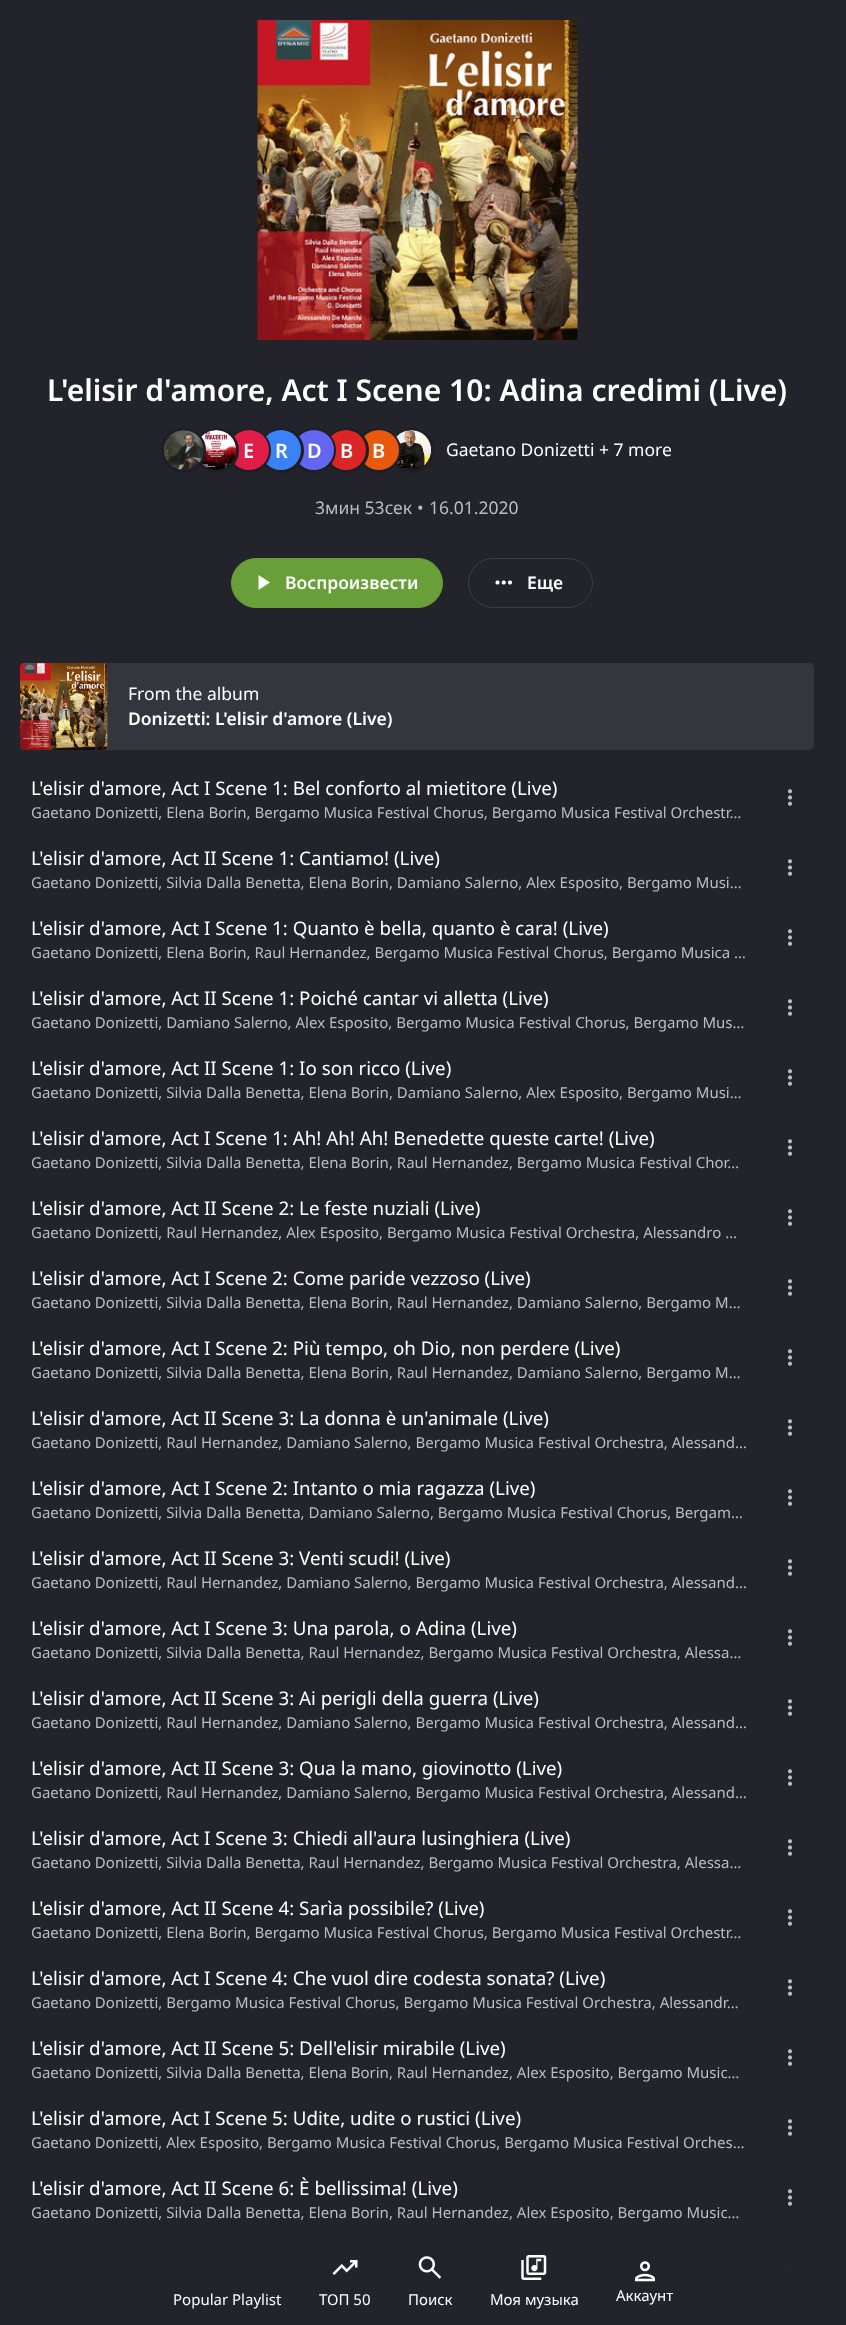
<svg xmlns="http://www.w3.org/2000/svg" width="846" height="2325">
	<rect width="100%" height="100%" fill="#23232C" />
	<rect x="577" y="20" width="1" height="320" fill="#2C2C34" />
	<image x="257" y="20" width="321" height="320" href="assets/img1.png" />
	<text x="47" y="401" font-family="Noto Sans" font-size="30" font-weight="600" fill="#FFFFFF">L'elisir d'amore, Act I Scene 10: Adina credimi (Live)</text>
	<circle cx="411.5" cy="450.5" r="22.5" fill="#1E1E26" />
	<image x="396" y="430" width="35" height="40" href="assets/img4.png" />
	<circle cx="378.5" cy="450.5" r="21" fill="#1E1E26" stroke="#1E1E26" stroke-width="3" />
	<circle cx="379" cy="450" r="20" fill="#EA580C" />
	<circle cx="346.5" cy="450.5" r="21" fill="#1E1E26" stroke="#1E1E26" stroke-width="3" />
	<circle cx="346" cy="450" r="20" fill="#DC2626" />
	<circle cx="313.5" cy="450.5" r="21" fill="#1E1E26" stroke="#1E1E26" stroke-width="3" />
	<circle cx="314" cy="450" r="20" fill="#6366F1" />
	<circle cx="281.5" cy="450.5" r="21" fill="#1E1E26" stroke="#1E1E26" stroke-width="3" />
	<circle cx="281" cy="450" r="20" fill="#3B82F6" />
	<circle cx="248.5" cy="450.5" r="21" fill="#1E1E26" stroke="#1E1E26" stroke-width="3" />
	<circle cx="249" cy="450" r="20" fill="#E11D48" />
	<circle cx="216.5" cy="450.5" r="21" fill="#1E1E26" stroke="#1E1E26" stroke-width="3" />
	<image x="201" y="430" width="35" height="40" href="assets/img3.png" />
	<circle cx="183.5" cy="450.5" r="21" fill="#1E1E26" stroke="#1E1E26" stroke-width="3" />
	<image x="164" y="430" width="40" height="40" href="assets/img2.png" />
	<g font-family="Noto Sans" font-size="20" font-weight="600" fill="#FFFFFF">
		<text x="243" y="458">E</text>
		<text x="275" y="458">R</text>
		<text x="307" y="458">D</text>
		<text x="340" y="458">B</text>
		<text x="372" y="458">B</text>
	</g>
	<text x="446" y="456" font-family="Noto Sans" font-size="17.5" fill="#FFFFFF">Gaetano Donizetti + 7 more</text>
	<g font-family="Noto Sans" font-size="17.5" fill="#BDBDC0">
		<text x="315" y="514">3мин 53сек</text>
		<text x="417" y="514">•</text>
		<text x="429" y="514">16.01.2020</text>
	</g>
	<rect x="231.5" y="558.5" width="211" height="49" rx="24.5" fill="#689F38" stroke="#689F38" />
	<path d="M258.5 590V575L270 582.5Z" fill="#FFFFFF" />
	<text x="285" y="589" font-family="Noto Sans" font-size="17.5" font-weight="600" fill="#FFFFFF">Воспроизвести</text>
	<rect x="468.5" y="558.5" width="124" height="49" rx="24.5" fill="none" stroke="#3D3D45" />
	<image x="495" y="580" width="18" height="5" href="assets/img5.png" />
	<text x="527" y="589" font-family="Noto Sans" font-size="17.5" font-weight="600" fill="#FFFFFF">Еще</text>
	<rect x="20" y="663" width="794" height="87" rx="5" fill="#35353D" />
	<rect x="20" y="663" width="88" height="87" fill="#FFFFFF" fill-opacity="0.04" />
	<image x="20" y="662" width="88" height="88" href="assets/img6.png" />
	<text x="128" y="700" font-family="Noto Sans" font-size="17.5" fill="#FFFFFF">From the album</text>
	<text x="128" y="725" font-family="Noto Sans" font-size="17.5" font-weight="600" fill="#FFFFFF">Donizetti: L'elisir d'amore (Live)</text>
	<text x="31" y="795" font-family="Noto Sans" font-size="18.75" fill="#FFFFFF">L'elisir d'amore, Act I Scene 1: Bel conforto al mietitore (Live)</text>
	<text x="31" y="818" font-family="Noto Sans" font-size="15" fill="#BDBDC0">Gaetano Donizetti, Elena Borin, Bergamo Musica Festival Chorus, Bergamo Musica Festival Orchestr…</text>
	<image x="787" y="789" width="6" height="17" href="assets/img7.png" />
	<text x="31" y="865" font-family="Noto Sans" font-size="18.75" fill="#FFFFFF">L'elisir d'amore, Act II Scene 1: Cantiamo! (Live)</text>
	<text x="31" y="888" font-family="Noto Sans" font-size="15" fill="#BDBDC0">Gaetano Donizetti, Silvia Dalla Benetta, Elena Borin, Damiano Salerno, Alex Esposito, Bergamo Musi…</text>
	<image x="787" y="859" width="6" height="17" href="assets/img7.png" />
	<text x="31" y="935" font-family="Noto Sans" font-size="18.75" fill="#FFFFFF">L'elisir d'amore, Act I Scene 1: Quanto è bella, quanto è cara! (Live)</text>
	<text x="31" y="958" font-family="Noto Sans" font-size="15" fill="#BDBDC0">Gaetano Donizetti, Elena Borin, Raul Hernandez, Bergamo Musica Festival Chorus, Bergamo Musica …</text>
	<image x="787" y="929" width="6" height="17" href="assets/img7.png" />
	<text x="31" y="1005" font-family="Noto Sans" font-size="18.75" fill="#FFFFFF">L'elisir d'amore, Act II Scene 1: Poiché cantar vi alletta (Live)</text>
	<text x="31" y="1028" font-family="Noto Sans" font-size="15" fill="#BDBDC0">Gaetano Donizetti, Damiano Salerno, Alex Esposito, Bergamo Musica Festival Chorus, Bergamo Mus…</text>
	<image x="787" y="999" width="6" height="17" href="assets/img7.png" />
	<text x="31" y="1075" font-family="Noto Sans" font-size="18.75" fill="#FFFFFF">L'elisir d'amore, Act II Scene 1: Io son ricco (Live)</text>
	<text x="31" y="1098" font-family="Noto Sans" font-size="15" fill="#BDBDC0">Gaetano Donizetti, Silvia Dalla Benetta, Elena Borin, Damiano Salerno, Alex Esposito, Bergamo Musi…</text>
	<image x="787" y="1069" width="6" height="17" href="assets/img7.png" />
	<text x="31" y="1145" font-family="Noto Sans" font-size="18.75" fill="#FFFFFF">L'elisir d'amore, Act I Scene 1: Ah! Ah! Ah! Benedette queste carte! (Live)</text>
	<text x="31" y="1168" font-family="Noto Sans" font-size="15" fill="#BDBDC0">Gaetano Donizetti, Silvia Dalla Benetta, Elena Borin, Raul Hernandez, Bergamo Musica Festival Chor…</text>
	<image x="787" y="1139" width="6" height="17" href="assets/img7.png" />
	<text x="31" y="1215" font-family="Noto Sans" font-size="18.75" fill="#FFFFFF">L'elisir d'amore, Act II Scene 2: Le feste nuziali (Live)</text>
	<text x="31" y="1238" font-family="Noto Sans" font-size="15" fill="#BDBDC0">Gaetano Donizetti, Raul Hernandez, Alex Esposito, Bergamo Musica Festival Orchestra, Alessandro …</text>
	<image x="787" y="1209" width="6" height="17" href="assets/img7.png" />
	<text x="31" y="1285" font-family="Noto Sans" font-size="18.75" fill="#FFFFFF">L'elisir d'amore, Act I Scene 2: Come paride vezzoso (Live)</text>
	<text x="31" y="1308" font-family="Noto Sans" font-size="15" fill="#BDBDC0">Gaetano Donizetti, Silvia Dalla Benetta, Elena Borin, Raul Hernandez, Damiano Salerno, Bergamo M…</text>
	<image x="787" y="1279" width="6" height="17" href="assets/img7.png" />
	<text x="31" y="1355" font-family="Noto Sans" font-size="18.75" fill="#FFFFFF">L'elisir d'amore, Act I Scene 2: Più tempo, oh Dio, non perdere (Live)</text>
	<text x="31" y="1378" font-family="Noto Sans" font-size="15" fill="#BDBDC0">Gaetano Donizetti, Silvia Dalla Benetta, Elena Borin, Raul Hernandez, Damiano Salerno, Bergamo M…</text>
	<image x="787" y="1349" width="6" height="17" href="assets/img7.png" />
	<text x="31" y="1425" font-family="Noto Sans" font-size="18.75" fill="#FFFFFF">L'elisir d'amore, Act II Scene 3: La donna è un'animale (Live)</text>
	<text x="31" y="1448" font-family="Noto Sans" font-size="15" fill="#BDBDC0">Gaetano Donizetti, Raul Hernandez, Damiano Salerno, Bergamo Musica Festival Orchestra, Alessand…</text>
	<image x="787" y="1419" width="6" height="17" href="assets/img7.png" />
	<text x="31" y="1495" font-family="Noto Sans" font-size="18.75" fill="#FFFFFF">L'elisir d'amore, Act I Scene 2: Intanto o mia ragazza (Live)</text>
	<text x="31" y="1518" font-family="Noto Sans" font-size="15" fill="#BDBDC0">Gaetano Donizetti, Silvia Dalla Benetta, Damiano Salerno, Bergamo Musica Festival Chorus, Bergam…</text>
	<image x="787" y="1489" width="6" height="17" href="assets/img7.png" />
	<text x="31" y="1565" font-family="Noto Sans" font-size="18.75" fill="#FFFFFF">L'elisir d'amore, Act II Scene 3: Venti scudi! (Live)</text>
	<text x="31" y="1588" font-family="Noto Sans" font-size="15" fill="#BDBDC0">Gaetano Donizetti, Raul Hernandez, Damiano Salerno, Bergamo Musica Festival Orchestra, Alessand…</text>
	<image x="787" y="1559" width="6" height="17" href="assets/img7.png" />
	<text x="31" y="1635" font-family="Noto Sans" font-size="18.75" fill="#FFFFFF">L'elisir d'amore, Act I Scene 3: Una parola, o Adina (Live)</text>
	<text x="31" y="1658" font-family="Noto Sans" font-size="15" fill="#BDBDC0">Gaetano Donizetti, Silvia Dalla Benetta, Raul Hernandez, Bergamo Musica Festival Orchestra, Alessa…</text>
	<image x="787" y="1629" width="6" height="17" href="assets/img7.png" />
	<text x="31" y="1705" font-family="Noto Sans" font-size="18.75" fill="#FFFFFF">L'elisir d'amore, Act II Scene 3: Ai perigli della guerra (Live)</text>
	<text x="31" y="1728" font-family="Noto Sans" font-size="15" fill="#BDBDC0">Gaetano Donizetti, Raul Hernandez, Damiano Salerno, Bergamo Musica Festival Orchestra, Alessand…</text>
	<image x="787" y="1699" width="6" height="17" href="assets/img7.png" />
	<text x="31" y="1775" font-family="Noto Sans" font-size="18.75" fill="#FFFFFF">L'elisir d'amore, Act II Scene 3: Qua la mano, giovinotto (Live)</text>
	<text x="31" y="1798" font-family="Noto Sans" font-size="15" fill="#BDBDC0">Gaetano Donizetti, Raul Hernandez, Damiano Salerno, Bergamo Musica Festival Orchestra, Alessand…</text>
	<image x="787" y="1769" width="6" height="17" href="assets/img7.png" />
	<text x="31" y="1845" font-family="Noto Sans" font-size="18.75" fill="#FFFFFF">L'elisir d'amore, Act I Scene 3: Chiedi all'aura lusinghiera (Live)</text>
	<text x="31" y="1868" font-family="Noto Sans" font-size="15" fill="#BDBDC0">Gaetano Donizetti, Silvia Dalla Benetta, Raul Hernandez, Bergamo Musica Festival Orchestra, Alessa…</text>
	<image x="787" y="1839" width="6" height="17" href="assets/img7.png" />
	<text x="31" y="1915" font-family="Noto Sans" font-size="18.75" fill="#FFFFFF">L'elisir d'amore, Act II Scene 4: Sarìa possibile? (Live)</text>
	<text x="31" y="1938" font-family="Noto Sans" font-size="15" fill="#BDBDC0">Gaetano Donizetti, Elena Borin, Bergamo Musica Festival Chorus, Bergamo Musica Festival Orchestr…</text>
	<image x="787" y="1909" width="6" height="17" href="assets/img7.png" />
	<text x="31" y="1985" font-family="Noto Sans" font-size="18.75" fill="#FFFFFF">L'elisir d'amore, Act I Scene 4: Che vuol dire codesta sonata? (Live)</text>
	<text x="31" y="2008" font-family="Noto Sans" font-size="15" fill="#BDBDC0">Gaetano Donizetti, Bergamo Musica Festival Chorus, Bergamo Musica Festival Orchestra, Alessandr…</text>
	<image x="787" y="1979" width="6" height="17" href="assets/img7.png" />
	<text x="31" y="2055" font-family="Noto Sans" font-size="18.75" fill="#FFFFFF">L'elisir d'amore, Act II Scene 5: Dell'elisir mirabile (Live)</text>
	<text x="31" y="2078" font-family="Noto Sans" font-size="15" fill="#BDBDC0">Gaetano Donizetti, Silvia Dalla Benetta, Elena Borin, Raul Hernandez, Alex Esposito, Bergamo Music…</text>
	<image x="787" y="2049" width="6" height="17" href="assets/img7.png" />
	<text x="31" y="2125" font-family="Noto Sans" font-size="18.75" fill="#FFFFFF">L'elisir d'amore, Act I Scene 5: Udite, udite o rustici (Live)</text>
	<text x="31" y="2148" font-family="Noto Sans" font-size="15" fill="#BDBDC0">Gaetano Donizetti, Alex Esposito, Bergamo Musica Festival Chorus, Bergamo Musica Festival Orches…</text>
	<image x="787" y="2119" width="6" height="17" href="assets/img7.png" />
	<text x="31" y="2195" font-family="Noto Sans" font-size="18.75" fill="#FFFFFF">L'elisir d'amore, Act II Scene 6: È bellissima! (Live)</text>
	<text x="31" y="2218" font-family="Noto Sans" font-size="15" fill="#BDBDC0">Gaetano Donizetti, Silvia Dalla Benetta, Elena Borin, Raul Hernandez, Alex Esposito, Bergamo Music…</text>
	<image x="787" y="2189" width="6" height="17" href="assets/img7.png" />
	<image x="787" y="2259" width="6" height="17" href="assets/img8.png" />
	<text x="173" y="2305" font-family="Noto Sans" font-size="15" fill="#FFFFFF">Popular Playlist</text>
	<image x="332" y="2260" width="26" height="15" href="assets/img9.png" />
	<text x="319" y="2305" font-family="Noto Sans" font-size="15" fill="#FFFFFF">ТОП 50</text>
	<image x="418" y="2256" width="24" height="23" href="assets/img10.png" />
	<text x="408" y="2305" font-family="Noto Sans" font-size="15" fill="#FFFFFF">Поиск</text>
	<image x="521" y="2255" width="26" height="25" href="assets/img11.png" />
	<text x="490" y="2305" font-family="Noto Sans" font-size="15" fill="#FFFFFF">Моя музыка</text>
	<image x="635" y="2261" width="20" height="21" href="assets/img12.png" />
	<text x="616" y="2301" font-family="Noto Sans" font-size="15" fill="#FFFFFF">Аккаунт</text>
</svg>
